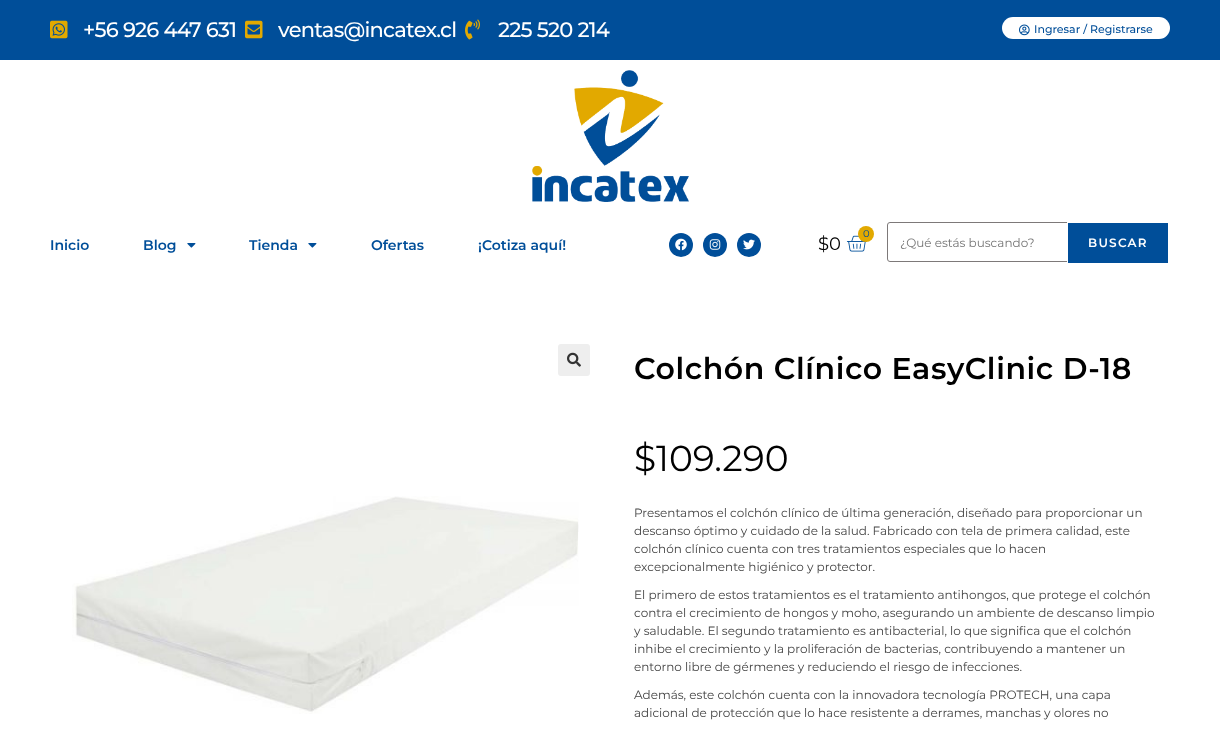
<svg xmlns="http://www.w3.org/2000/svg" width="1220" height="730">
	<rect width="100%" height="100%" fill="#FFFFFF" />
	<rect x="0" y="0" width="1220" height="60" fill="#004E99" />
	<image x="50" y="20" width="18" height="19" href="assets/img1.png" />
	<text x="83" y="37" font-family="Montserrat" font-size="21" font-weight="500" letter-spacing="-0.75" fill="#FFFFFF">+56 926 447 631</text>
	<image x="245" y="20" width="18" height="19" href="assets/img2.png" />
	<text x="278" y="37" font-family="Montserrat" font-size="21" font-weight="500" letter-spacing="-0.75" fill="#FFFFFF">ventas@incatex.cl</text>
	<image x="465" y="19" width="15" height="21" href="assets/img3.png" />
	<text x="498" y="37" font-family="Montserrat" font-size="21" font-weight="500" letter-spacing="-0.75" fill="#FFFFFF">225 520 214</text>
	<rect x="1002" y="17" width="168" height="22" rx="11" fill="#FFFFFF" />
	<image x="1019" y="24" width="11" height="12" href="assets/img4.png" />
	<text x="1034" y="33" font-family="Montserrat" font-size="11" font-weight="500" fill="#004E99">Ingresar / Registrarse</text>
	<image x="532" y="70" width="157" height="132" href="assets/img5.png" />
	<g font-family="Montserrat" font-size="14" font-weight="600" fill="#004E99">
		<text x="50" y="250">Inicio</text>
		<text x="143" y="250">Blog</text>
	</g>
	<image x="187" y="243" width="9" height="5" href="assets/img6.png" />
	<text x="249" y="250" font-family="Montserrat" font-size="14" font-weight="600" fill="#004E99">Tienda</text>
	<image x="308" y="243" width="9" height="5" href="assets/img6.png" />
	<g font-family="Montserrat" font-size="14" font-weight="600" fill="#004E99">
		<text x="371" y="250">Ofertas</text>
		<text x="478" y="250">¡Cotiza aquí!</text>
	</g>
	<circle cx="681" cy="245" r="12" fill="#004E99" />
	<image x="675" y="238" width="12" height="13" href="assets/img7.png" />
	<circle cx="715" cy="245" r="12" fill="#004E99" />
	<image x="709" y="239" width="12" height="11" href="assets/img8.png" />
	<circle cx="749" cy="245" r="12" fill="#004E99" />
	<image x="743" y="239" width="12" height="11" href="assets/img9.png" />
	<image x="846" y="235" width="21" height="17" href="assets/img10.png" />
	<circle cx="866" cy="234" r="8" fill="#E2A900" />
	<text x="863" y="237" font-family="Montserrat" font-size="10" fill="#004E99">0</text>
	<text x="818" y="250" font-family="Montserrat" font-size="18" fill="#000000">$0</text>
	<rect x="887.5" y="222.5" width="281" height="39" rx="2.5" fill="none" stroke="#7D7979" />
	<text x="900" y="247" font-family="Montserrat" font-size="12" fill="#757575">¿Qué estás buscando?</text>
	<rect x="1067.5" y="222.5" width="101" height="41" fill="#004E99" stroke="#FFFFFF" />
	<text x="1088" y="247" font-family="Montserrat" font-size="12" font-weight="600" letter-spacing="1.25" fill="#FFFFFF">BUSCAR</text>
	<rect x="558" y="344" width="32" height="32" rx="3" fill="#EEEEEE" />
	<image x="567" y="352" width="14" height="15" href="assets/img11.png" />
	<image x="72" y="496" width="507" height="218" href="assets/img12.png" />
	<text x="634" y="379" font-family="Montserrat" font-size="30" font-weight="600" letter-spacing="0.6" fill="#000000">Colchón Clínico EasyClinic D-18</text>
	<g font-family="Montserrat" font-size="36" fill="#000000">
		<text x="634" y="471">$</text>
		<text x="656" y="471">109.290</text>
	</g>
	<g font-family="Montserrat" font-size="12" fill="#444444">
		<text x="634" y="517">Presentamos el colchón clínico de última generación, diseñado para proporcionar un</text>
		<text x="634" y="535">descanso óptimo y cuidado de la salud. Fabricado con tela de primera calidad, este</text>
		<text x="634" y="553">colchón clínico cuenta con tres tratamientos especiales que lo hacen</text>
		<text x="634" y="571">excepcionalmente higiénico y protector.</text>
		<text x="634" y="599">El primero de estos tratamientos es el tratamiento antihongos, que protege el colchón</text>
		<text x="634" y="617">contra el crecimiento de hongos y moho, asegurando un ambiente de descanso limpio</text>
		<text x="634" y="635">y saludable. El segundo tratamiento es antibacterial, lo que significa que el colchón</text>
		<text x="634" y="653">inhibe el crecimiento y la proliferación de bacterias, contribuyendo a mantener un</text>
		<text x="634" y="671">entorno libre de gérmenes y reduciendo el riesgo de infecciones.</text>
		<text x="634" y="699">Además, este colchón cuenta con la innovadora tecnología PROTECH, una capa</text>
		<text x="634" y="717">adicional de protección que lo hace resistente a derrames, manchas y olores no</text>
	</g>
</svg>
